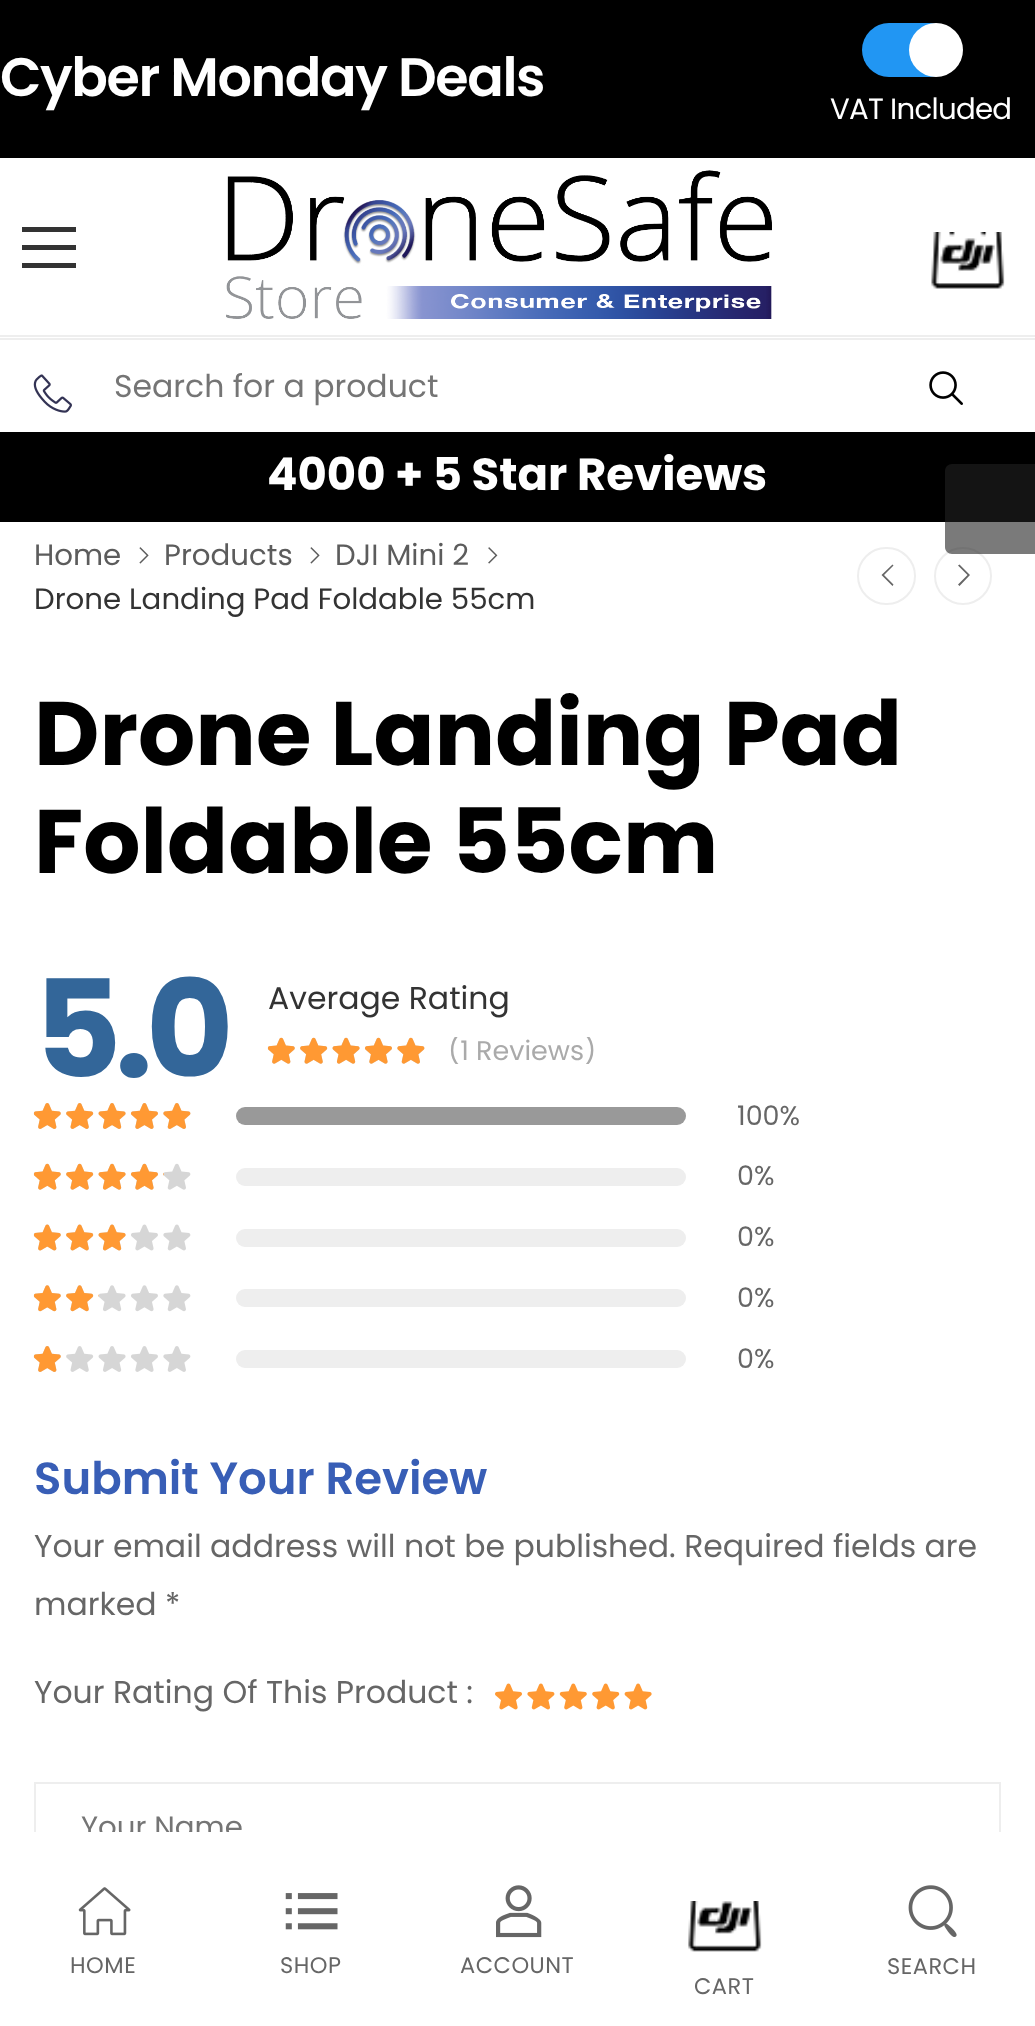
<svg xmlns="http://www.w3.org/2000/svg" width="1035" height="2026">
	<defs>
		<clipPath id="clip1"><rect x="448" y="1037" width="148" height="27" /></clipPath>
	</defs>
	<rect width="100%" height="100%" fill="#FFFFFF" />
	<rect x="0" y="338" width="1035" height="2" fill="#EEEEEE" />
	<rect x="0" y="0" width="1035" height="158" fill="#000000" />
	<text x="0" y="96" font-family="Poppins" font-size="54" font-weight="600" letter-spacing="-1.4" fill="#FFFFFF">Cyber Monday Deals</text>
	<rect x="862" y="23" width="94" height="54" rx="27" fill="#2196F3" />
	<circle cx="936" cy="50" r="27" fill="#FFFFFF" />
	<text x="830" y="119" font-family="Poppins" font-size="29.25" letter-spacing="-0.75" fill="#FFFFFF">VAT Included</text>
	<rect x="0" y="335" width="1035" height="2" fill="#EEEEEE" />
	<path d="M22 227V232H76V227ZM22 245V250H76V245ZM22 263V268H76V263Z" fill="#333333" />
	<image x="226" y="170" width="546" height="149" href="assets/img1.png" />
	<image x="931" y="232" width="74" height="57" href="assets/img2.png" />
	<image x="33" y="374" width="39" height="39" href="assets/img3.png" />
	<text x="114" y="397" font-family="Poppins" font-size="31.5" fill="#757575">Search for a product</text>
	<image x="929" y="371" width="34" height="34" href="assets/img4.png" />
	<rect x="0" y="432" width="1035" height="90" fill="#000000" />
	<text x="267" y="490" font-family="Poppins" font-size="45" font-weight="700" fill="#FFFFFF">4000 + 5 Star Reviews</text>
	<text x="34" y="565" font-family="Poppins" font-size="29.25" fill="#5C5C5C">Home</text>
	<image x="139" y="547" width="10" height="17" href="assets/img5.png" />
	<text x="164" y="565" font-family="Poppins" font-size="29.25" fill="#5C5C5C">Products</text>
	<image x="310" y="547" width="10" height="17" href="assets/img5.png" />
	<text x="335" y="565" font-family="Poppins" font-size="29.25" fill="#5C5C5C">DJI Mini 2</text>
	<image x="488" y="547" width="10" height="17" href="assets/img6.png" />
	<text x="34" y="609" font-family="Poppins" font-size="29.25" fill="#333333">Drone Landing Pad Foldable 55cm</text>
	<rect x="858" y="548" width="57" height="56" rx="28" fill="none" stroke="#EEEEEE" stroke-width="2" />
	<path d="M892.5 564.5L881.5 575L892.5 586L893.5 584.5L884 575L893.5 565.5Z" fill="#666666" />
	<circle cx="963" cy="576" r="28" fill="none" stroke="#EEEEEE" stroke-width="2" />
	<path d="M959.5 564.5L958 565.5L967.5 575L958 584.5L959.5 586L970 575Z" fill="#666666" />
	<g font-family="Poppins" font-size="90" font-weight="700" fill="#000000">
		<text x="34" y="765">Drone Landing Pad</text>
		<text x="34" y="873">Foldable 55cm</text>
	</g>
	<path d="M952 464H1035V554H952C948 554 945 551 945 547V471C945 467 948 464 952 464Z" fill="#222222" fill-opacity="0.6" />
	<text x="34" y="1077" font-family="Poppins" font-size="135" font-weight="700" letter-spacing="-7" fill="#336699">5.0</text>
	<text x="268" y="1009" font-family="Poppins" font-size="31.5" fill="#333333">Average Rating</text>
	<image x="267" y="1037" width="158" height="27" href="assets/img7.png" />
	<image x="268" y="1037" width="157" height="27" href="assets/img8.png" />
	<g clip-path="url(#clip1)">
		<text x="448" y="1060" font-family="Poppins" font-size="27" fill="#AAAAAA">(1 Reviews)</text>
	</g>
	<image x="33" y="1103" width="158" height="26" href="assets/img9.png" />
	<image x="34" y="1103" width="157" height="26" href="assets/img10.png" />
	<rect x="236" y="1107" width="450" height="18" rx="9" fill="#999999" />
	<text x="737" y="1125" font-family="Poppins" font-size="27" fill="#666666">100%</text>
	<image x="33" y="1163" width="158" height="27" href="assets/img7.png" />
	<image x="34" y="1163" width="130" height="27" href="assets/img11.png" />
	<rect x="236" y="1168" width="450" height="18" rx="9" fill="#EEEEEE" />
	<text x="737" y="1185" font-family="Poppins" font-size="27" fill="#666666">0%</text>
	<image x="33" y="1224" width="158" height="27" href="assets/img12.png" />
	<image x="34" y="1224" width="92" height="27" href="assets/img13.png" />
	<rect x="236" y="1229" width="450" height="18" rx="9" fill="#EEEEEE" />
	<text x="737" y="1246" font-family="Poppins" font-size="27" fill="#666666">0%</text>
	<image x="33" y="1285" width="158" height="27" href="assets/img14.png" />
	<image x="34" y="1285" width="65" height="27" href="assets/img15.png" />
	<rect x="236" y="1289" width="450" height="18" rx="9" fill="#EEEEEE" />
	<text x="737" y="1307" font-family="Poppins" font-size="27" fill="#666666">0%</text>
	<image x="33" y="1346" width="158" height="26" href="assets/img9.png" />
	<image x="34" y="1346" width="27" height="26" href="assets/img16.png" />
	<rect x="236" y="1350" width="450" height="18" rx="9" fill="#EEEEEE" />
	<text x="737" y="1368" font-family="Poppins" font-size="27" fill="#666666">0%</text>
	<text x="34" y="1494" font-family="Poppins" font-size="45" font-weight="600" fill="#385EB6">Submit Your Review</text>
	<g font-family="Poppins" font-size="31.5" fill="#666666">
		<text x="34" y="1557">Your email address will not be published. Required fields are</text>
		<text x="34" y="1615">marked *</text>
		<text x="34" y="1703">Your Rating Of This Product :</text>
	</g>
	<image x="495" y="1683" width="157" height="27" href="assets/img17.png" />
	<rect x="35" y="1783" width="965" height="88" fill="none" stroke="#EEEEEE" stroke-width="2" />
	<text x="81" y="1837" font-family="Poppins" font-size="29.25" fill="#757575">Your Name</text>
	<rect x="34" y="1832" width="967" height="40" fill="#FFFFFF" />
	<image x="78" y="1887" width="53" height="49" href="assets/img18.png" />
	<text x="70" y="1973" font-family="Poppins" font-size="22.5" letter-spacing="0.5" fill="#666666">HOME</text>
	<image x="285" y="1893" width="53" height="37" href="assets/img19.png" />
	<text x="280" y="1973" font-family="Poppins" font-size="22.5" letter-spacing="0.5" fill="#666666">SHOP</text>
	<image x="496" y="1885" width="46" height="53" href="assets/img20.png" />
	<text x="460" y="1973" font-family="Poppins" font-size="22.5" letter-spacing="0.5" fill="#666666">ACCOUNT</text>
	<image x="908" y="1885" width="49" height="52" href="assets/img21.png" />
	<text x="887" y="1974" font-family="Poppins" font-size="22.5" letter-spacing="0.5" fill="#666666">SEARCH</text>
	<image x="688" y="1901" width="74" height="51" href="assets/img22.png" />
	<text x="694" y="1994" font-family="Poppins" font-size="22.5" letter-spacing="0.5" fill="#666666">CART</text>
</svg>
